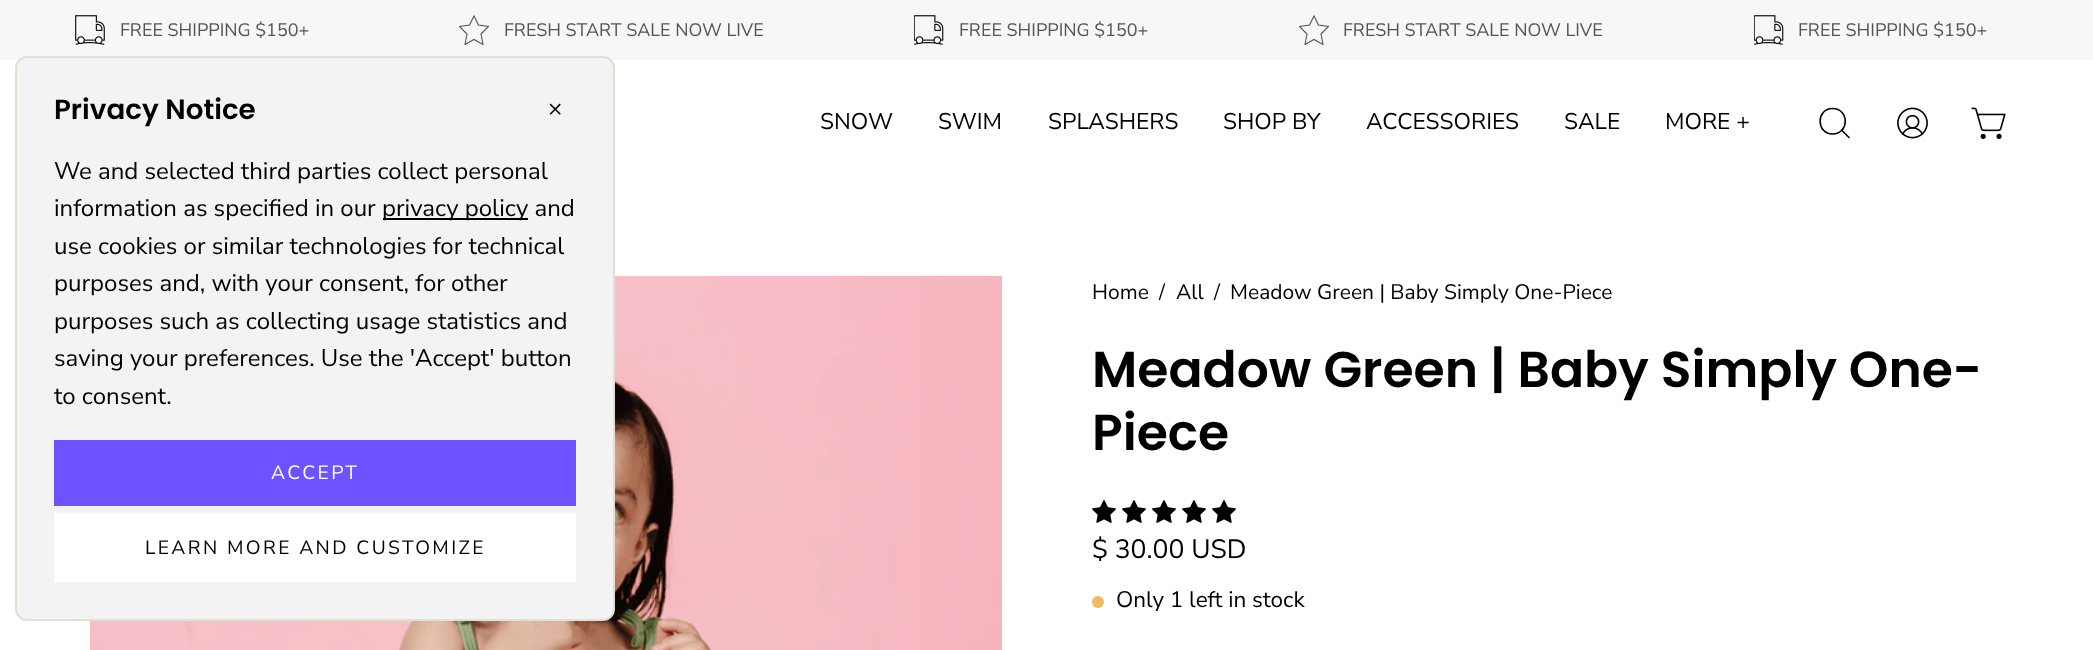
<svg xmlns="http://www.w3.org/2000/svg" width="2093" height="650">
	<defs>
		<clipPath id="clip1"><rect x="459" y="15" width="30" height="30" /></clipPath>
		<clipPath id="clip2"><rect x="1299" y="15" width="30" height="30" /></clipPath>
	</defs>
	<rect width="100%" height="100%" fill="#FFFFFF" />
	<rect x="0" y="0" width="2093" height="60" fill="#F7F7F7" />
	<image x="75" y="15" width="30" height="30" href="assets/img1.png" />
	<text x="120" y="36" font-family="Nunito Sans" font-size="18" fill="#545454">FREE SHIPPING $150+</text>
	<g clip-path="url(#clip1)">
		<path d="M474 39.5L483 44.5L481 34L488.5 26.5L478.5 25L474 16L469.5 25L459.5 26.5L467 34L465 44.5Z" fill="none" stroke="#545454" stroke-width="1.1" />
	</g>
	<text x="504" y="36" font-family="Nunito Sans" font-size="18" fill="#545454">FRESH START SALE NOW LIVE</text>
	<image x="914" y="15" width="30" height="30" href="assets/img2.png" />
	<text x="959" y="36" font-family="Nunito Sans" font-size="18" fill="#545454">FREE SHIPPING $150+</text>
	<g clip-path="url(#clip2)">
		<path d="M1314 39.5L1323 44.5L1321 34L1328.5 26.5L1318.5 25L1314 16L1309.5 25L1299.5 26.5L1307 34L1305 44.5Z" fill="none" stroke="#545454" stroke-width="1.1" />
	</g>
	<text x="1343" y="36" font-family="Nunito Sans" font-size="18" fill="#545454">FRESH START SALE NOW LIVE</text>
	<image x="1754" y="15" width="30" height="30" href="assets/img2.png" />
	<text x="1798" y="36" font-family="Nunito Sans" font-size="18" fill="#545454">FREE SHIPPING $150+</text>
	<image x="90" y="276" width="912" height="374" href="assets/img5.png" />
	<rect x="16" y="57" width="598" height="563" rx="11" fill="#F3F3F3" stroke="#E3DFD3" stroke-width="2" />
	<text x="54" y="119" font-family="Poppins" font-size="27.75" font-weight="600" fill="#000000">Privacy Notice</text>
	<g font-family="Nunito Sans" font-size="24" fill="#000000">
		<text x="548" y="116">×</text>
		<text x="54" y="179">We and selected third parties collect personal</text>
		<text x="54" y="216">information as specified in our</text>
	</g>
	<rect x="383" y="218" width="145" height="2" fill="#000000" />
	<g font-family="Nunito Sans" font-size="24" fill="#000000">
		<text x="382" y="216">privacy policy and</text>
		<text x="54" y="254">use cookies or similar technologies for technical</text>
		<text x="54" y="291">purposes and, with your consent, for other</text>
		<text x="54" y="329">purposes such as collecting usage statistics and</text>
		<text x="54" y="366">saving your preferences. Use the 'Accept' button</text>
		<text x="54" y="404">to consent.</text>
	</g>
	<rect x="54" y="440" width="522" height="66" fill="#6D52FF" />
	<text x="271" y="479" font-family="Nunito Sans" font-size="19.25" letter-spacing="2.4" fill="#FFFFFF">ACCEPT</text>
	<rect x="54" y="513" width="522" height="69" fill="#FFFFFF" />
	<text x="145" y="554" font-family="Nunito Sans" font-size="19.25" letter-spacing="2.4" fill="#000000">LEARN MORE AND CUSTOMIZE</text>
	<g font-family="Nunito Sans" font-size="22.75" fill="#000000">
		<text x="820" y="129">SNOW</text>
		<text x="938" y="129">SWIM</text>
		<text x="1048" y="129">SPLASHERS</text>
		<text x="1223" y="129">SHOP BY</text>
		<text x="1366" y="129">ACCESSORIES</text>
		<text x="1564" y="129">SALE</text>
		<text x="1665" y="129">MORE +</text>
	</g>
	<path d="M1832.5 134C1849.5 134 1849.5 108.5 1832.5 108.5C1816 108.5 1816 134 1832.5 134ZM1841.5 130L1849 137.5" fill="none" stroke="#000000" stroke-width="1.6" stroke-linecap="round" stroke-linejoin="round" />
	<image x="1897" y="107" width="31" height="32" href="assets/img3.png" />
	<image x="1971" y="107" width="35" height="32" href="assets/img4.png" />
	<g font-family="Nunito Sans" font-size="21" fill="#000000">
		<text x="1092" y="299">Home</text>
		<text x="1159" y="299">/</text>
		<text x="1176" y="299">All</text>
		<text x="1214" y="299">/</text>
		<text x="1230" y="299">Meadow Green | Baby Simply One-Piece</text>
	</g>
	<g font-family="Poppins" font-size="50.4" font-weight="600" fill="#000000">
		<text x="1092" y="387">Meadow Green | Baby Simply One-</text>
		<text x="1092" y="450">Piece</text>
	</g>
	<image x="1092" y="500" width="24" height="23" href="assets/img6.png" />
	<image x="1122" y="500" width="24" height="23" href="assets/img6.png" />
	<image x="1152" y="500" width="24" height="23" href="assets/img6.png" />
	<image x="1182" y="500" width="24" height="23" href="assets/img6.png" />
	<image x="1212" y="500" width="24" height="23" href="assets/img6.png" />
	<text x="1092" y="558" font-family="Nunito Sans" font-size="26.5" fill="#000000">$ 30.00 USD</text>
	<circle cx="1098" cy="602" r="6" fill="#ECBD5E" />
	<text x="1116" y="607" font-family="Nunito Sans" font-size="22.5" fill="#000000">Only 1 left in stock</text>
</svg>
